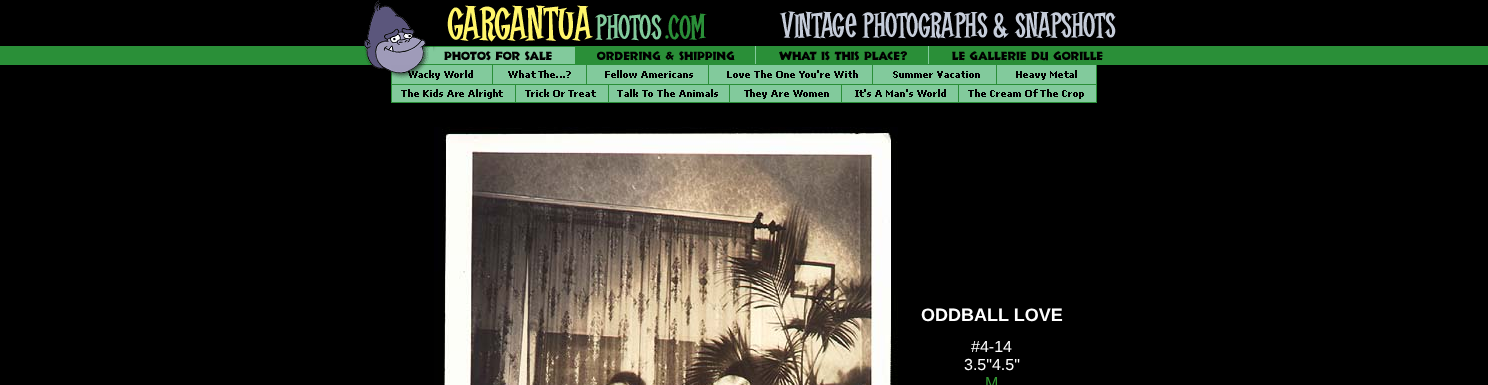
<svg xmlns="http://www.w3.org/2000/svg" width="1488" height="385">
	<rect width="100%" height="100%" fill="#000000" />
	<rect x="0" y="46" width="1488" height="19" fill="#2A8F38" />
	<image x="364" y="0" width="62" height="46" href="assets/img1.png" />
	<image x="447" y="5" width="260" height="37" href="assets/img2.png" />
	<image x="779" y="11" width="337" height="28" href="assets/img3.png" />
	<image x="364" y="46" width="69" height="19" href="assets/img4.png" />
	<image x="433" y="46" width="142" height="18" href="assets/img5.png" />
	<image x="597" y="46" width="159" height="18" href="assets/img6.png" />
	<image x="779" y="46" width="150" height="18" href="assets/img7.png" />
	<image x="952" y="51" width="151" height="10" href="assets/img8.png" />
	<image x="372" y="65" width="19" height="7" href="assets/img9.png" />
	<image x="391" y="65" width="102" height="20" href="assets/img10.png" />
	<image x="493" y="65" width="94" height="20" href="assets/img11.png" />
	<image x="587" y="65" width="122" height="20" href="assets/img12.png" />
	<image x="709" y="65" width="164" height="20" href="assets/img13.png" />
	<image x="873" y="65" width="124" height="20" href="assets/img14.png" />
	<image x="997" y="65" width="100" height="20" href="assets/img15.png" />
	<image x="391" y="85" width="125" height="18" href="assets/img16.png" />
	<image x="516" y="85" width="93" height="18" href="assets/img17.png" />
	<image x="609" y="85" width="121" height="18" href="assets/img18.png" />
	<image x="730" y="85" width="112" height="18" href="assets/img19.png" />
	<image x="842" y="85" width="117" height="18" href="assets/img20.png" />
	<image x="959" y="85" width="138" height="18" href="assets/img21.png" />
	<image x="434" y="127" width="464" height="258" href="assets/img22.png" />
	<text x="921" y="321" font-family="Liberation Sans" font-size="18" font-weight="700" fill="#FFFFFF">ODDBALL LOVE</text>
	<g font-family="Liberation Sans" font-size="16" fill="#FFFFFF">
		<text x="971" y="352">#4-14</text>
		<text x="964" y="370">3.5"4.5"</text>
	</g>
	<text x="985" y="388" font-family="Liberation Sans" font-size="16" fill="#339933">M</text>
</svg>
